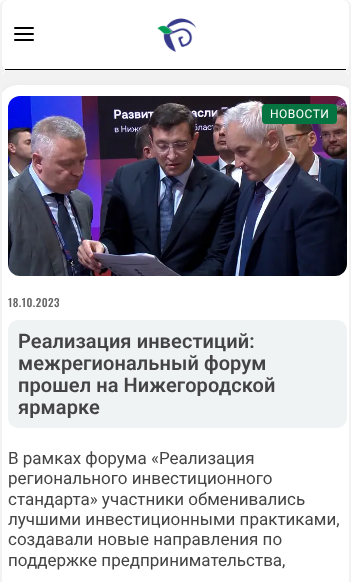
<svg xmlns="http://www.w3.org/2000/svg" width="351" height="582">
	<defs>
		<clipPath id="clip1"><rect x="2" y="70" width="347" height="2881" rx="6" /></clipPath>
		<clipPath id="clip2"><rect x="2" y="70" width="347" height="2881" rx="6" /></clipPath>
	</defs>
	<rect width="100%" height="100%" fill="#FFFFFF" />
	<rect x="0" y="0" width="351" height="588" rx="6" fill="#F2F2F2" />
	<rect x="2" y="0" width="347" height="70" rx="6" fill="#FFFFFF" />
	<rect x="5" y="69" width="341" height="1" fill="#000000" />
	<rect x="14" y="27" width="20" height="2" rx="1" fill="#000000" />
	<rect x="14" y="33" width="20" height="2" rx="1" fill="#000000" />
	<rect x="14" y="39" width="20" height="2" rx="1" fill="#000000" />
	<image x="157" y="18" width="40" height="34" href="assets/img1.png" />
	<rect x="2" y="70" width="347" height="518" rx="6" fill="#FFFFFF" />
	<rect x="3" y="70" width="345" height="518" rx="6" fill="#F2F2F2" />
	<rect x="2" y="75" width="347" height="18" fill="#F2F2F2" />
	<g clip-path="url(#clip1)">
		<rect x="-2" y="89" width="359" height="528" rx="20" fill="#000000" fill-opacity="0.1" filter="blur(5px)" />
	</g>
	<g clip-path="url(#clip2)">
		<rect x="-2" y="85" width="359" height="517" rx="20" fill="#FFFFFF" />
	</g>
	<image x="8" y="96" width="339" height="180" href="assets/img2.png" />
	<rect x="262" y="104" width="75" height="20" rx="4" fill="#057440" />
	<text x="270" y="118" font-family="Roboto" font-size="12" letter-spacing="0.5" fill="#FFFFFF">НОВОСТИ</text>
	<text x="8" y="307" font-family="Oswald" font-size="11" font-weight="500" letter-spacing="0.5" fill="#656565">18.10.2023</text>
	<rect x="8" y="320" width="339" height="108" rx="10" fill="#F0F3F4" />
	<g font-family="Roboto" font-size="20" font-weight="600" letter-spacing="0.1" fill="#444444">
		<text x="18" y="348">Реализация инвестиций:</text>
		<text x="18" y="370">межрегиональный форум</text>
		<text x="18" y="392">прошел на Нижегородской</text>
		<text x="18" y="414">ярмарке</text>
	</g>
	<g font-family="Roboto" font-size="17" fill="#444444">
		<text x="8" y="464">В рамках форума «Реализация</text>
		<text x="8" y="484">регионального инвестиционного</text>
		<text x="8" y="505">стандарта» участники обменивались</text>
		<text x="8" y="525">лучшими инвестиционными практиками,</text>
		<text x="8" y="545">создавали новые направления по</text>
		<text x="8" y="566">поддержке предпринимательства,</text>
	</g>
</svg>
